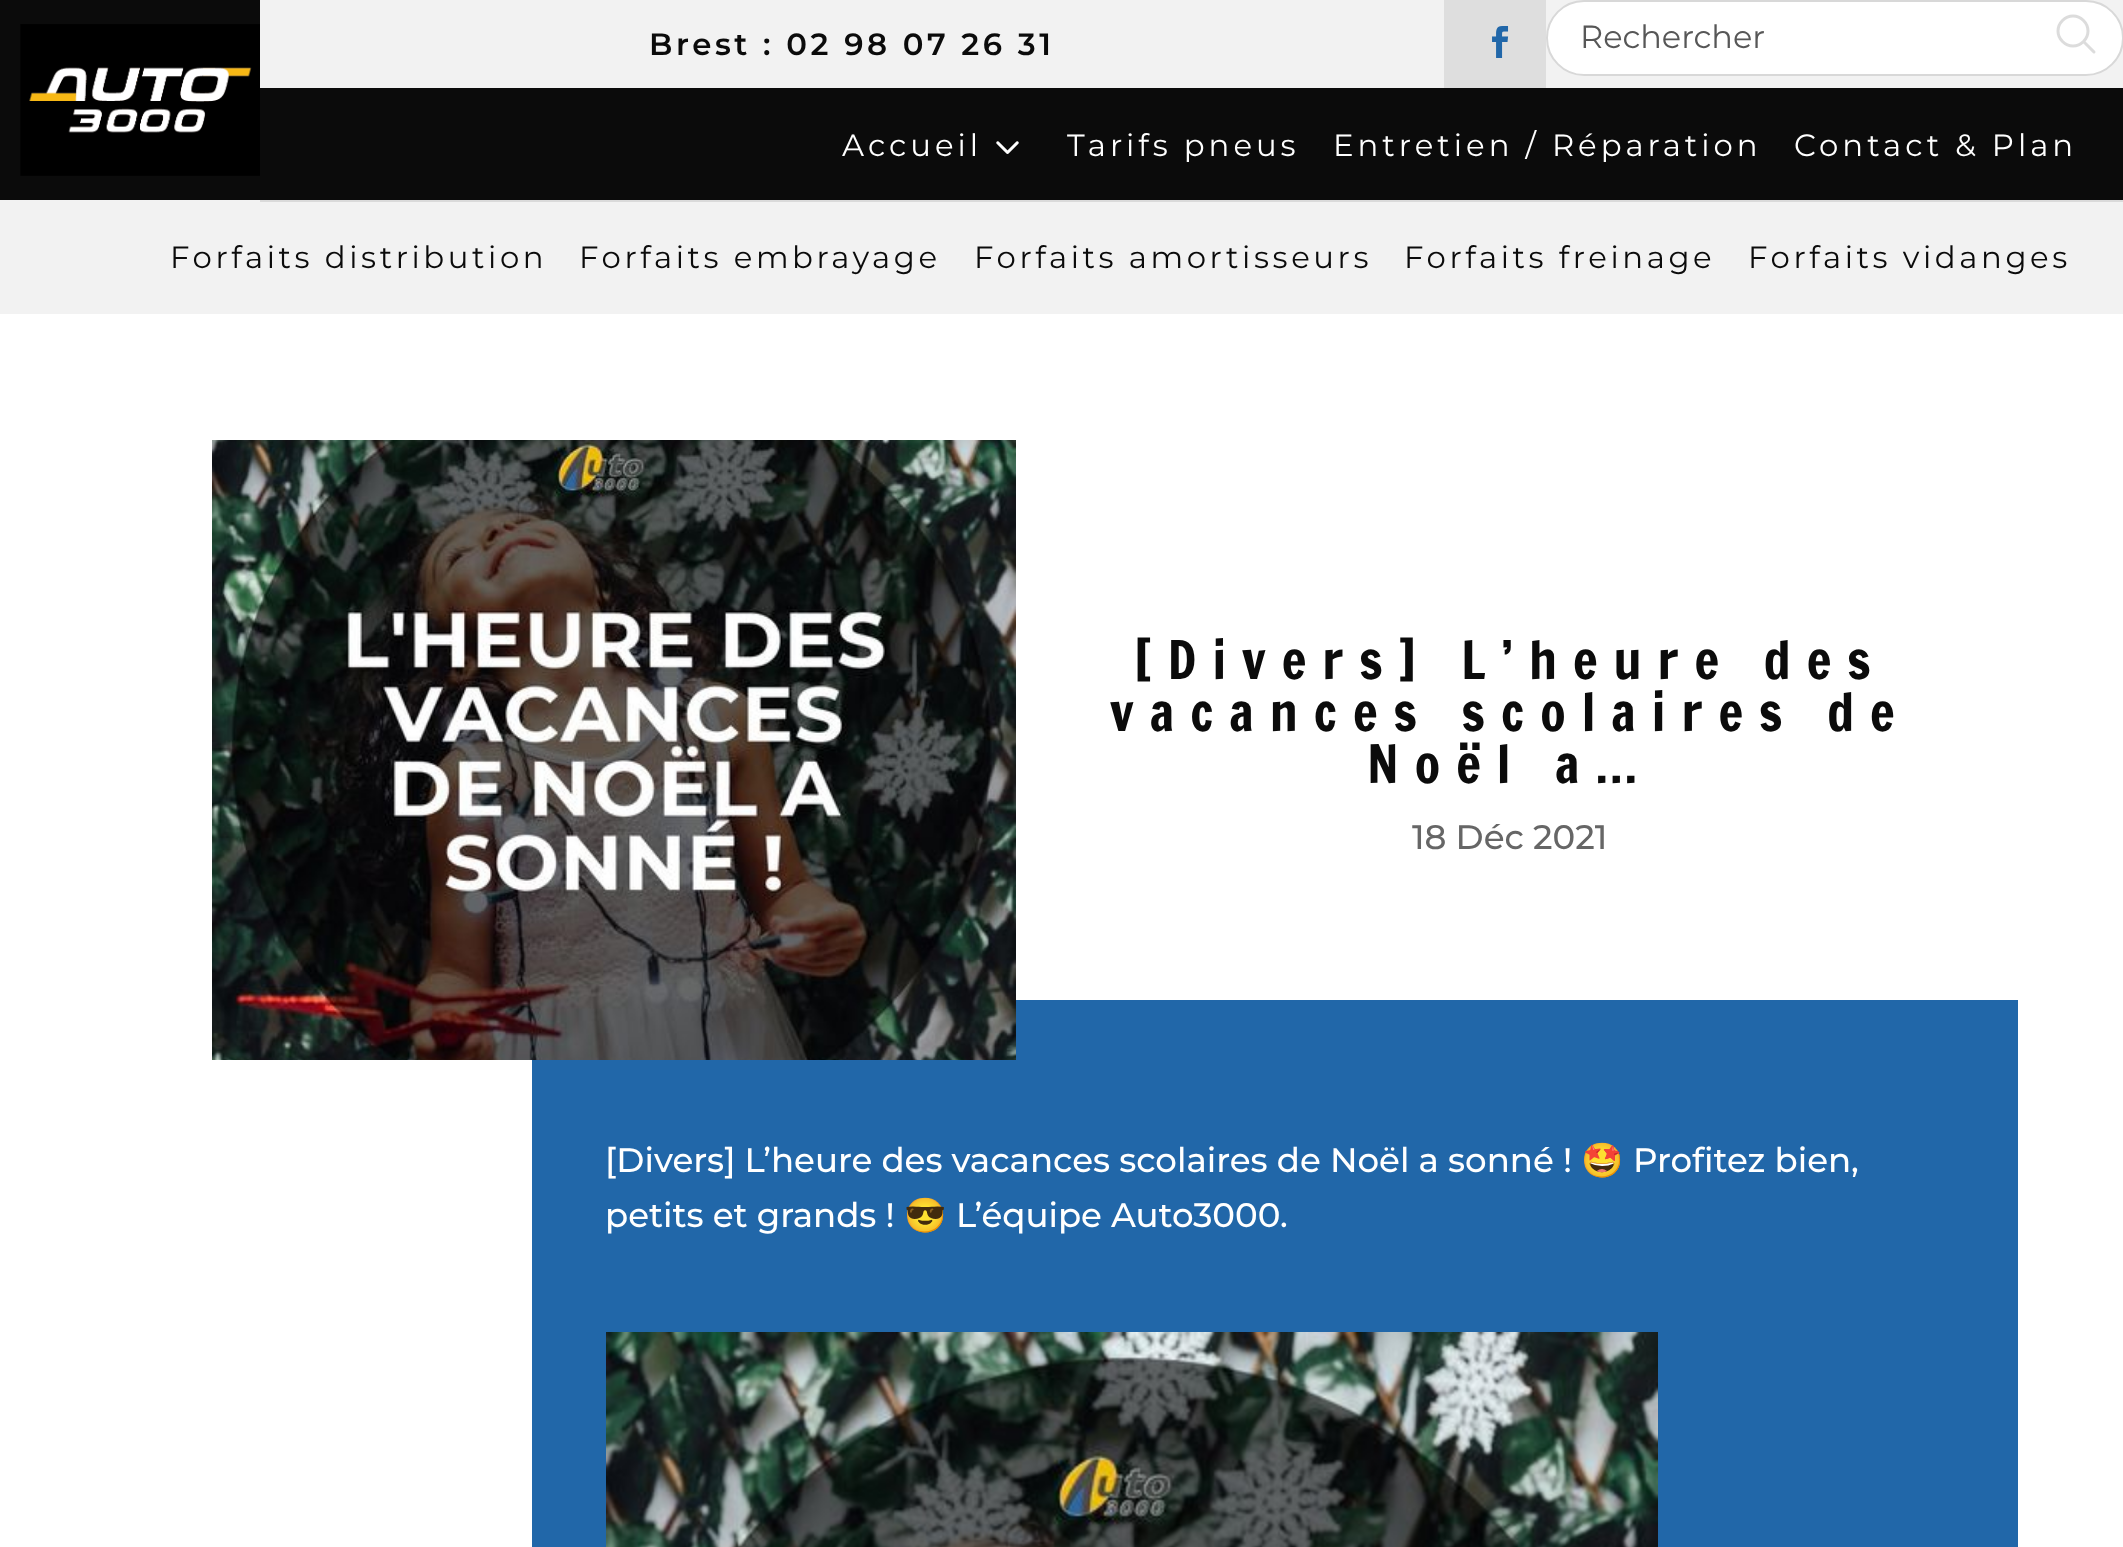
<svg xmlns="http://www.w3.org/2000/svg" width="2123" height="1547">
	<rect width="100%" height="100%" fill="#F2F2F2" />
	<rect x="0" y="0" width="2123" height="200" fill="#0B0B0B" />
	<image x="20" y="24" width="240" height="152" href="assets/img1.png" />
	<rect x="260" y="0" width="1863" height="88" fill="#F2F2F2" />
	<text x="649" y="55" font-family="Montserrat" font-size="30.75" font-weight="600" letter-spacing="3.6" fill="#0B0B0B">Brest : 02 98 07 26 31</text>
	<rect x="1444" y="0" width="102" height="88" fill="#DEDEDE" />
	<image x="1492" y="26" width="17" height="32" href="assets/img2.png" />
	<rect x="1547" y="1" width="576" height="74" rx="37" fill="#FFFFFF" stroke="#D8D8D8" stroke-width="2" />
	<text x="1580" y="48" font-family="Montserrat" font-size="32" fill="#575757">Rechercher</text>
	<path d="M2094 52L2083.5 41.5M2083.5 41.5C2089.5 35.5 2089.5 26.5 2083.5 20.5C2077.5 14.5 2068.5 14.5 2062.5 20.5C2056.5 26.5 2056.5 35.5 2062.5 41.5C2068.5 47.5 2077.5 47.5 2083.5 41.5Z" fill="none" stroke="#DCDCDC" stroke-width="3" stroke-linecap="round" stroke-linejoin="round" />
	<rect x="260" y="200" width="1863" height="2" fill="#DADADA" />
	<text x="842" y="156" font-family="Montserrat" font-size="30.75" letter-spacing="4" fill="#FFFFFF">Accueil</text>
	<image x="996" y="141" width="23" height="13" href="assets/img3.png" />
	<g font-family="Montserrat" font-size="30.75" letter-spacing="4" fill="#FFFFFF">
		<text x="1067" y="156">Tarifs pneus</text>
		<text x="1333" y="156">Entretien / Réparation</text>
		<text x="1794" y="156">Contact &amp; Plan</text>
	</g>
	<g font-family="Montserrat" font-size="30.75" letter-spacing="3.6" fill="#0B0B0B">
		<text x="170" y="268">Forfaits distribution</text>
		<text x="579" y="268">Forfaits embrayage</text>
		<text x="974" y="268">Forfaits amortisseurs</text>
		<text x="1404" y="268">Forfaits freinage</text>
		<text x="1748" y="268">Forfaits vidanges</text>
	</g>
	<rect x="0" y="314" width="2123" height="1233" fill="#FFFFFF" />
	<rect x="532" y="1000" width="1486" height="547" fill="#2167A9" />
	<image x="212" y="440" width="804" height="620" href="assets/img4.png" />
	<g font-family="Francois One" font-size="52" letter-spacing="16" fill="#0B0B0B">
		<text x="1134" y="679">[Divers] L’heure des</text>
		<text x="1110" y="731">vacances scolaires de</text>
		<text x="1367" y="783">Noël a…</text>
	</g>
	<text x="1412" y="849" font-family="Montserrat" font-size="34" font-weight="500" fill="#666666">18 Déc 2021</text>
	<text x="605" y="1172" font-family="Montserrat" font-size="34" font-weight="500" fill="#FFFFFF">[Divers] L’heure des vacances scolaires de Noël a sonné !</text>
	<text x="1581" y="1172" font-family="Noto Color Emoji" font-size="34" fill="#FFFFFF">🤩</text>
	<g font-family="Montserrat" font-size="34" font-weight="500" fill="#FFFFFF">
		<text x="1633" y="1172">Profitez bien,</text>
		<text x="605" y="1227">petits et grands !</text>
	</g>
	<text x="904" y="1227" font-family="Noto Color Emoji" font-size="34" fill="#FFFFFF">😎</text>
	<text x="956" y="1227" font-family="Montserrat" font-size="34" font-weight="500" fill="#FFFFFF">L’équipe Auto3000.</text>
	<image x="606" y="1332" width="1052" height="215" href="assets/img5.png" />
</svg>
